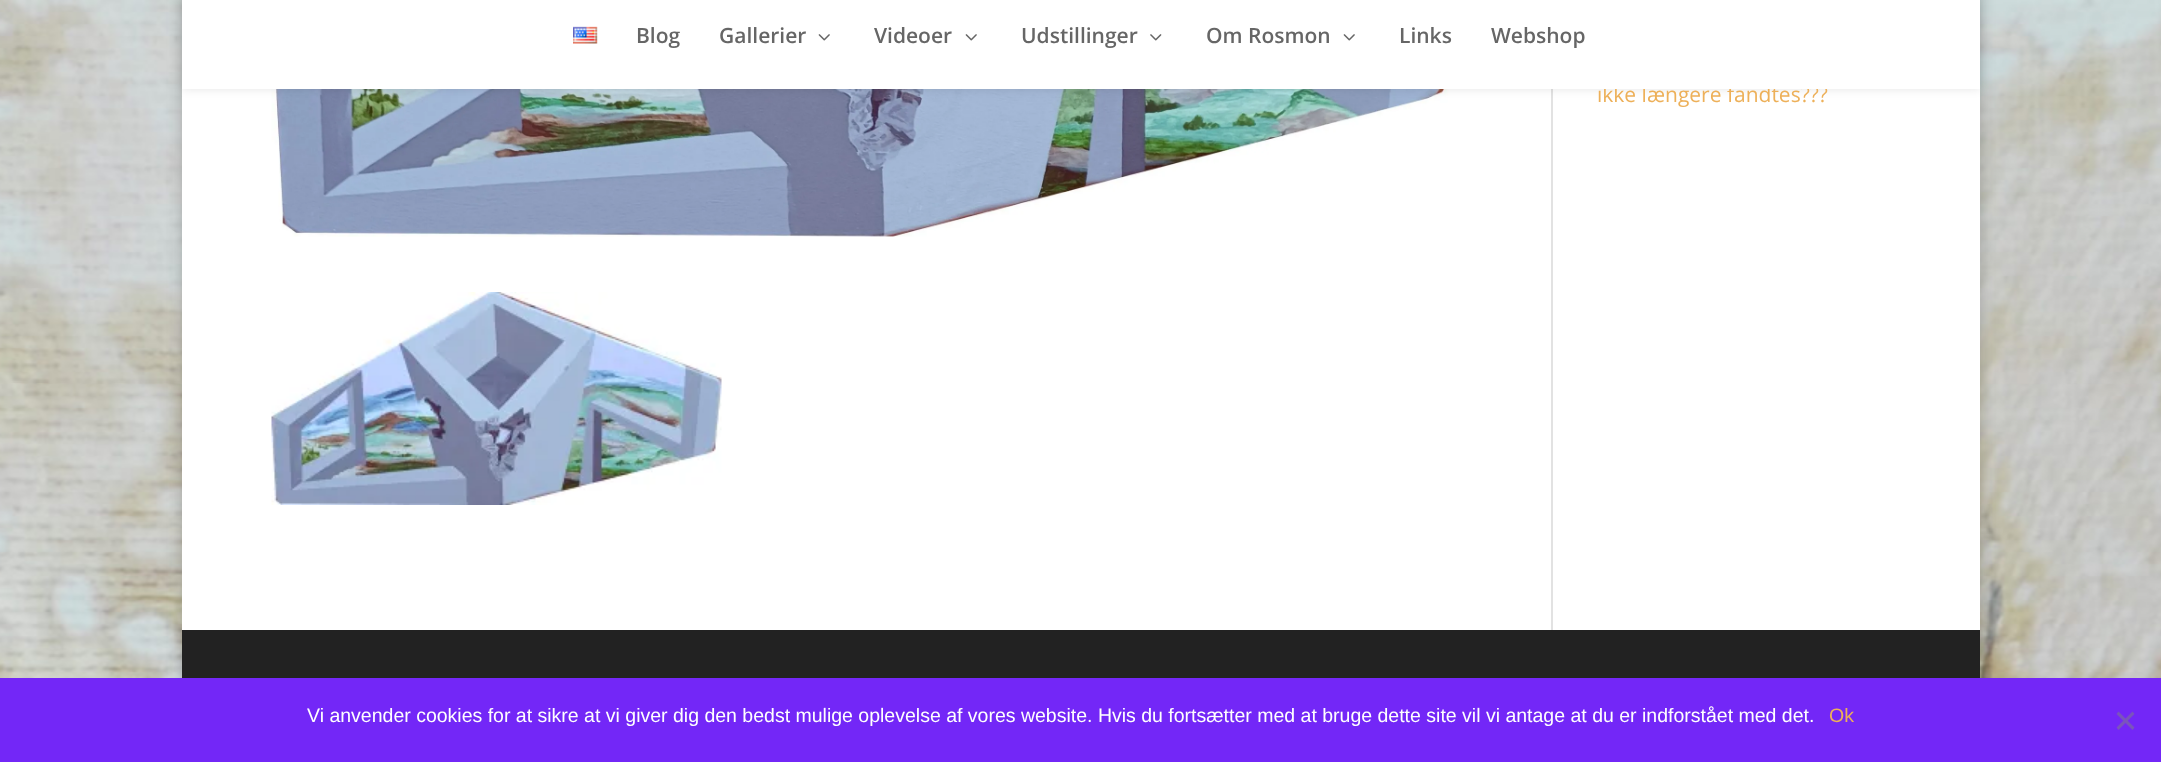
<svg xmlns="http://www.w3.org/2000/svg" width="2161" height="762">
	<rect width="100%" height="100%" fill="#FFFFFF" />
	<image x="0" y="0" width="2161" height="678" href="assets/img1.png" />
	<rect x="182" y="-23" width="1798" height="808" fill="#000000" fill-opacity="0.2" filter="blur(7.5px)" />
	<rect x="182" y="89" width="1798" height="541" fill="#FFFFFF" />
	<rect x="1551" y="89" width="2" height="541" fill="#E2E2E2" />
	<image x="271" y="89" width="1184" height="148" href="assets/img5.png" />
	<rect x="182" y="0" width="1798" height="89" fill="#000000" fill-opacity="0.1" filter="blur(5px)" />
	<text x="1597" y="102" font-family="Open Sans" font-size="21" fill="#EDB059">ikke længere fandtes???</text>
	<rect x="182" y="0" width="1798" height="89" fill="#FFFFFF" />
	<image x="573" y="26" width="25" height="18" href="assets/img2.png" />
	<g font-family="Open Sans" font-size="21" font-weight="600" fill="#666666">
		<text x="636" y="43">Blog</text>
		<text x="719" y="43">Gallerier</text>
	</g>
	<image x="818" y="34" width="12" height="7" href="assets/img3.png" />
	<text x="874" y="43" font-family="Open Sans" font-size="21" font-weight="600" fill="#666666">Videoer</text>
	<image x="965" y="34" width="12" height="7" href="assets/img3.png" />
	<text x="1021" y="43" font-family="Open Sans" font-size="21" font-weight="600" fill="#666666">Udstillinger</text>
	<image x="1150" y="34" width="12" height="7" href="assets/img4.png" />
	<text x="1206" y="43" font-family="Open Sans" font-size="21" font-weight="600" fill="#666666">Om Rosmon</text>
	<image x="1343" y="34" width="12" height="7" href="assets/img3.png" />
	<g font-family="Open Sans" font-size="21" font-weight="600" fill="#666666">
		<text x="1399" y="43">Links</text>
		<text x="1491" y="43">Webshop</text>
	</g>
	<image x="271" y="292" width="451" height="213" href="assets/img6.png" />
	<rect x="182" y="630" width="1798" height="48" fill="#222222" />
	<rect x="0" y="678" width="2161" height="84" fill="#7327F7" />
	<text x="307" y="722" font-family="Liberation Sans" font-size="19.5" fill="#FFFFFF">Vi anvender cookies for at sikre at vi giver dig den bedst mulige oplevelse af vores website. Hvis du fortsætter med at bruge dette site vil vi antage at du er indforstået med det.</text>
	<text x="1829" y="722" font-family="Liberation Sans" font-size="19.5" fill="#EDB059">Ok</text>
	<path d="M2132.5 711.5L2134.5 714L2118.5 730L2116.5 727.5Z" fill="#7A54BC" />
	<path d="M2116.5 714L2118.5 711.5L2134.5 727.5L2132.5 730Z" fill="#7A54BC" />
</svg>
